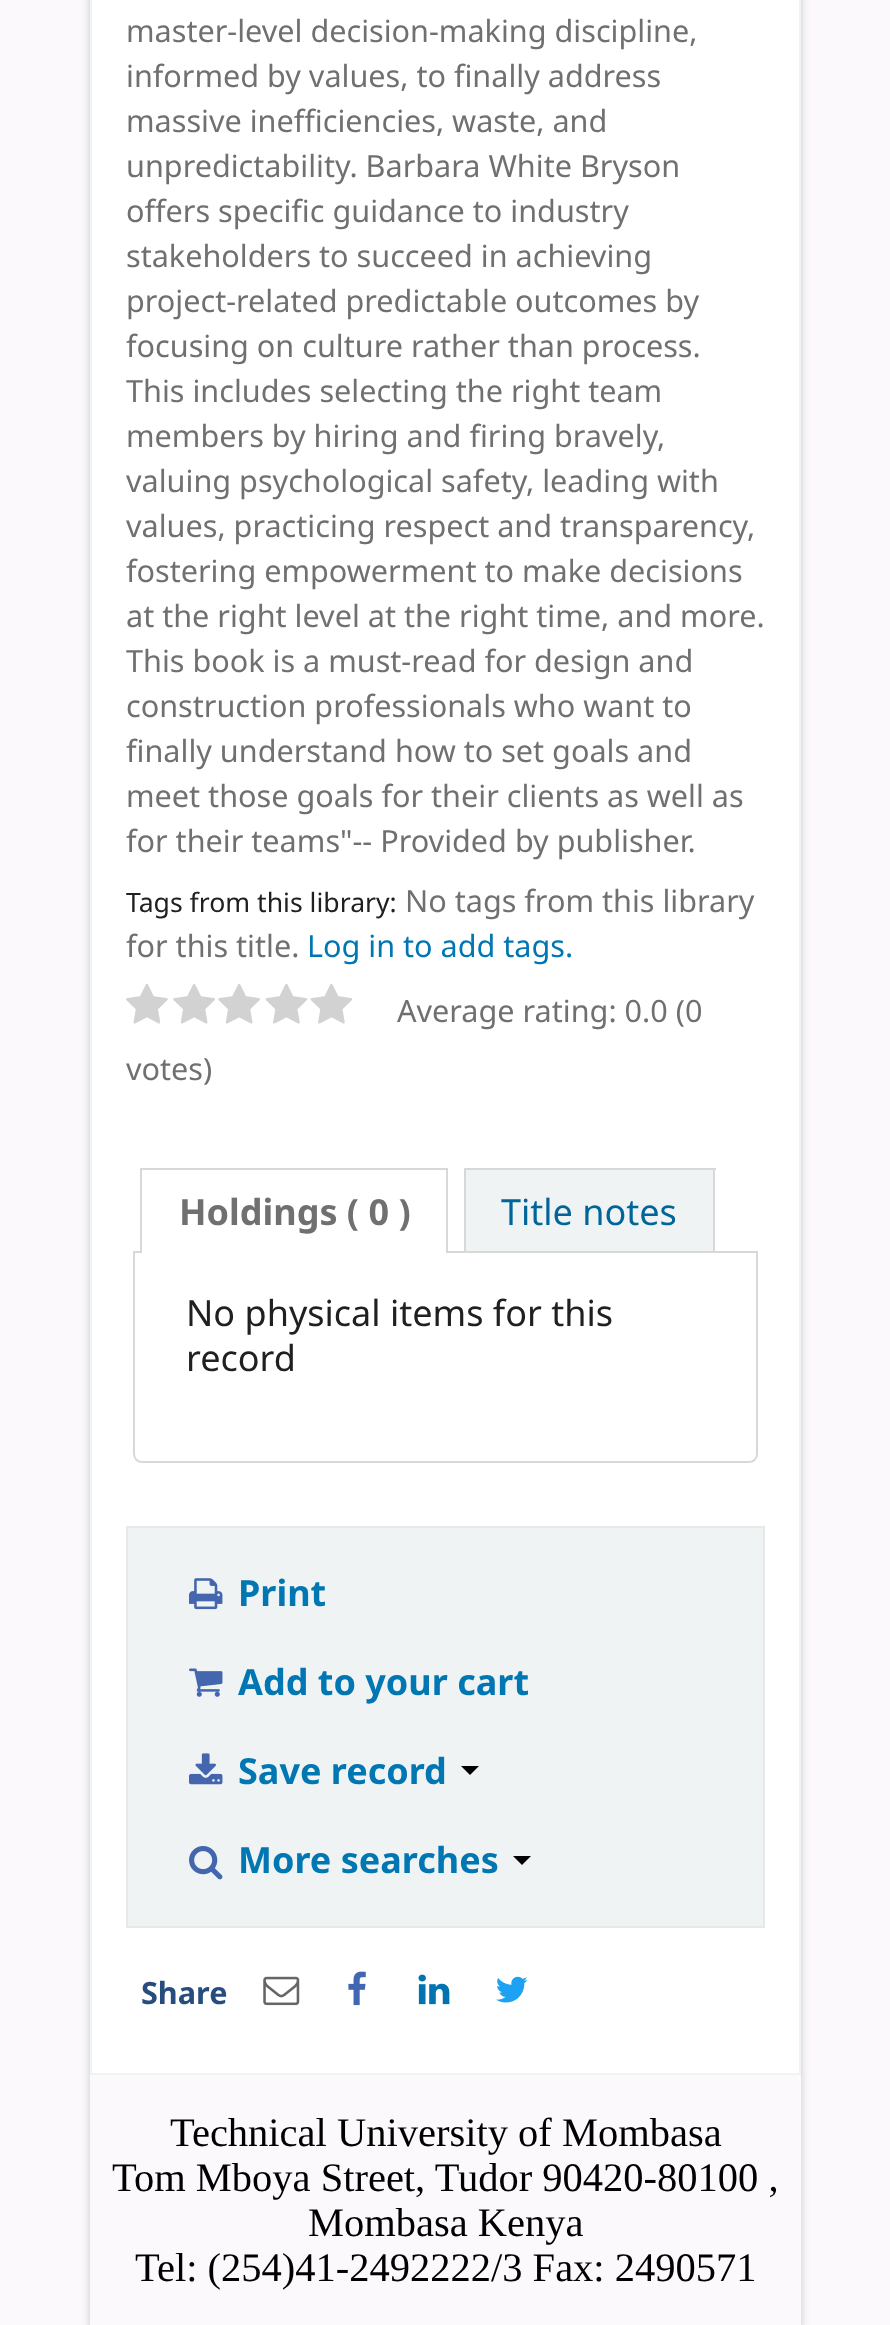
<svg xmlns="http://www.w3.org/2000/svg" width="890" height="2325">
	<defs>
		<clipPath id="clip1"><path d="M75 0H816V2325H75ZM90-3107H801V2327H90Z" clip-rule="evenodd" /></clipPath>
	</defs>
	<rect width="100%" height="100%" fill="#FCF9FC" />
	<g clip-path="url(#clip1)">
		<rect x="90" y="-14" width="711" height="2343" fill="#000000" fill-opacity="0.2" filter="blur(4.5px)" />
	</g>
	<rect x="91" y="-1" width="709" height="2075" fill="#FFFFFF" stroke="#F0F3F3" stroke-width="2" />
	<g font-family="Noto Sans" font-size="30.6" fill="#707070">
		<text x="126" y="42">master-level decision-making discipline,</text>
		<text x="126" y="87">informed by values, to finally address</text>
		<text x="126" y="132">massive inefficiencies, waste, and</text>
		<text x="126" y="177">unpredictability. Barbara White Bryson</text>
		<text x="126" y="222">offers specific guidance to industry</text>
		<text x="126" y="267">stakeholders to succeed in achieving</text>
		<text x="126" y="312">project-related predictable outcomes by</text>
		<text x="126" y="357">focusing on culture rather than process.</text>
		<text x="126" y="402">This includes selecting the right team</text>
		<text x="126" y="447">members by hiring and firing bravely,</text>
		<text x="126" y="492">valuing psychological safety, leading with</text>
		<text x="126" y="537">values, practicing respect and transparency,</text>
		<text x="126" y="582">fostering empowerment to make decisions</text>
		<text x="126" y="627">at the right level at the right time, and more.</text>
		<text x="126" y="672">This book is a must-read for design and</text>
		<text x="126" y="717">construction professionals who want to</text>
		<text x="126" y="762">finally understand how to set goals and</text>
		<text x="126" y="807">meet those goals for their clients as well as</text>
		<text x="126" y="852">for their teams"-- Provided by publisher.</text>
	</g>
	<text x="126" y="912" font-family="Noto Sans" font-size="26.6" fill="#202020">Tags from this library:</text>
	<g font-family="Noto Sans" font-size="30.6" fill="#707070">
		<text x="405" y="912">No tags from this library</text>
		<text x="126" y="957">for this title.</text>
	</g>
	<text x="307" y="957" font-family="Noto Sans" font-size="30.6" fill="#0076B2">Log in to add tags.</text>
	<image x="126" y="983" width="42" height="41" href="assets/img1.png" />
	<image x="173" y="983" width="42" height="41" href="assets/img2.png" />
	<image x="218" y="983" width="42" height="41" href="assets/img2.png" />
	<image x="265" y="983" width="43" height="41" href="assets/img3.png" />
	<image x="310" y="983" width="43" height="41" href="assets/img3.png" />
	<g font-family="Noto Sans" font-size="30.6" fill="#707070">
		<text x="397" y="1022">Average rating: 0.0 (0</text>
		<text x="126" y="1080">votes)</text>
	</g>
	<path d="M134 1252H757V1454C757 1458.5 753.5 1462 749 1462H142C137.5 1462 134 1458.5 134 1454Z" fill="none" stroke="#D8D8D8" stroke-width="2" />
	<rect x="142" y="1251" width="304" height="2" fill="#FFFFFF" />
	<rect x="140" y="1168" width="308" height="2" fill="#D8D8D8" />
	<rect x="446" y="1168" width="2" height="85" fill="#D8D8D8" />
	<rect x="140" y="1168" width="2" height="85" fill="#D8D8D8" />
	<text x="179" y="1225" font-family="Noto Sans" font-size="36" font-weight="700" fill="#707070">Holdings ( 0 )</text>
	<rect x="466" y="1170" width="247" height="81" fill="#F0F3F3" />
	<rect x="464" y="1168" width="252" height="2" fill="#D8D8D8" />
	<rect x="713" y="1168" width="2" height="83" fill="#D8D8D8" />
	<rect x="464" y="1168" width="2" height="83" fill="#D8D8D8" />
	<text x="501" y="1225" font-family="Noto Sans" font-size="36" fill="#006699">Title notes</text>
	<g font-family="Noto Sans" font-size="36" fill="#202020">
		<text x="186" y="1326">No physical items for this</text>
		<text x="186" y="1371">record</text>
	</g>
	<rect x="127" y="1527" width="637" height="400" fill="#F0F3F3" stroke="#E8E8E8" stroke-width="2" />
	<image x="189" y="1578" width="34" height="32" href="assets/img4.png" />
	<text x="238" y="1606" font-family="Noto Sans" font-size="36" font-weight="700" fill="#0076B2">Print</text>
	<image x="189" y="1668" width="34" height="29" href="assets/img5.png" />
	<text x="238" y="1695" font-family="Noto Sans" font-size="36" font-weight="700" fill="#0076B2">Add to your cart</text>
	<image x="189" y="1753" width="34" height="32" href="assets/img6.png" />
	<text x="238" y="1784" font-family="Noto Sans" font-size="36" font-weight="700" fill="#0076B2">Save record</text>
	<path d="M461 1766H479L470 1775Z" fill="#000000" />
	<image x="189" y="1846" width="34" height="34" href="assets/img7.png" />
	<text x="238" y="1873" font-family="Noto Sans" font-size="36" font-weight="700" fill="#0076B2">More searches</text>
	<path d="M513 1856H531L522 1865Z" fill="#000000" />
	<text x="141" y="2004" font-family="Noto Sans" font-size="30.6" font-weight="700" fill="#274D7F">Share</text>
	<image x="263" y="1976" width="37" height="30" href="assets/img8.png" />
	<image x="348" y="1971" width="18" height="35" href="assets/img9.png" />
	<image x="418" y="1974" width="32" height="31" href="assets/img10.png" />
	<image x="496" y="1976" width="32" height="27" href="assets/img11.png" />
	<g font-family="Liberation Serif" font-size="40.5" fill="#000000">
		<text x="170" y="2146">Technical University of Mombasa</text>
		<text x="112" y="2191">Tom Mboya Street, Tudor 90420-80100 ,</text>
		<text x="308" y="2236">Mombasa Kenya</text>
		<text x="135" y="2281">Tel: (254)41-2492222/3 Fax: 2490571</text>
	</g>
</svg>
